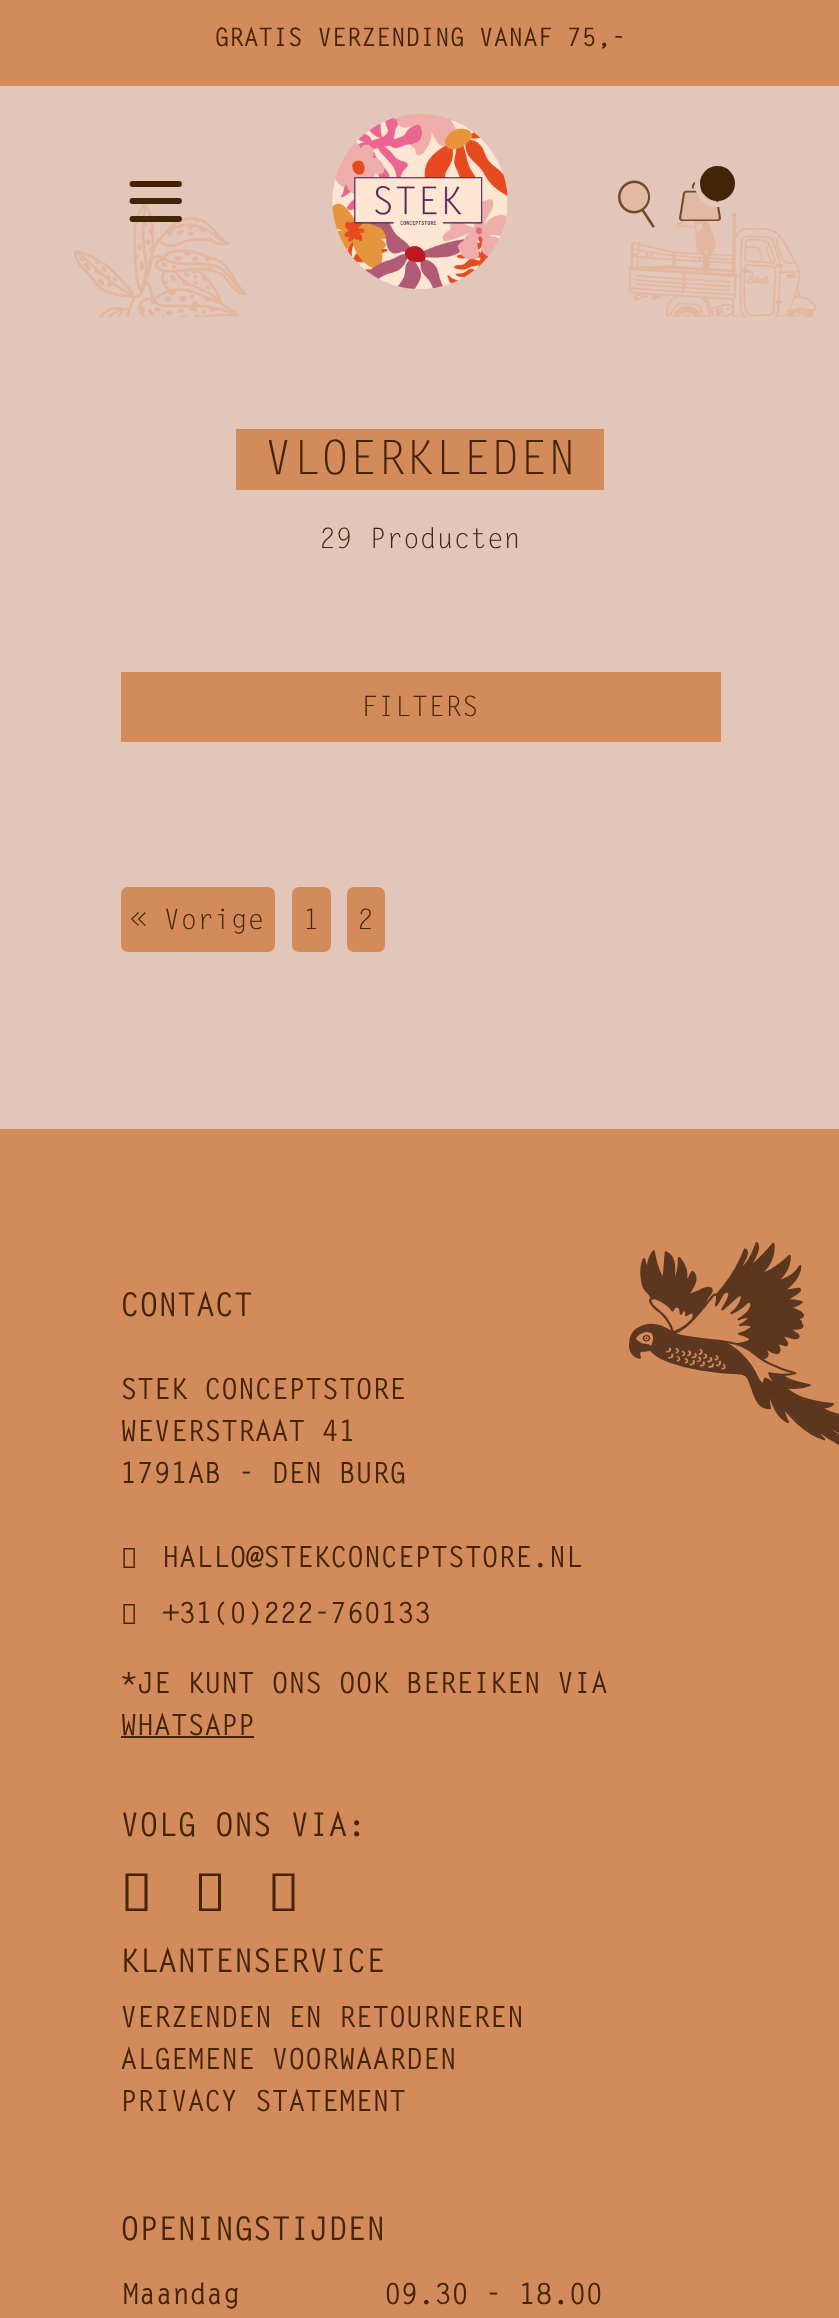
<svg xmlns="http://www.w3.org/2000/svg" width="839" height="2318">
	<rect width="100%" height="100%" fill="#D38B5B" />
	<text x="214" y="46" font-family="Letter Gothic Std" font-size="24.5" font-weight="700" fill="#432407">GRATIS VERZENDING VANAF 75,-</text>
	<rect x="0" y="86" width="839" height="875" fill="#E2C6BA" />
	<image x="74" y="203" width="173" height="114" href="assets/img4.png" />
	<path d="M132.5 184H179M132.5 201H179M132.5 219H179" fill="none" stroke="#432407" stroke-width="5.8" stroke-linecap="round" stroke-linejoin="round" />
	<image x="332" y="114" width="176" height="175" href="assets/img1.png" />
	<image x="628" y="213" width="189" height="104" href="assets/img5.png" />
	<image x="618" y="180" width="37" height="48" href="assets/img2.png" />
	<image x="679" y="180" width="42" height="41" href="assets/img3.png" />
	<rect x="697.5" y="163.5" width="40" height="41" rx="20" fill="none" stroke="#E2C6BA" stroke-width="5" />
	<circle cx="717.5" cy="183.5" r="17.5" fill="#432407" />
	<rect x="236" y="429" width="368" height="61" fill="#D38B5B" />
	<text x="264" y="474" font-family="Letter Gothic Std" font-size="47.25" fill="#432407">VLOERKLEDEN</text>
	<text x="319" y="548" font-family="Letter Gothic Std" font-size="28" fill="#432407">29 Producten</text>
	<rect x="121" y="672" width="600" height="70" fill="#D38B5B" />
	<text x="361" y="716" font-family="Letter Gothic Std" font-size="28" fill="#432407">FILTERS</text>
	<rect x="121" y="887" width="154" height="65" rx="7" fill="#D38B5B" />
	<text x="130" y="929" font-family="Letter Gothic Std" font-size="28" fill="#432407">« Vorige</text>
	<rect x="292" y="887" width="39" height="65" rx="7" fill="#D38B5B" />
	<text x="303" y="929" font-family="Letter Gothic Std" font-size="28" fill="#432407">1</text>
	<rect x="347" y="887" width="38" height="65" rx="7" fill="#D38B5B" />
	<text x="357" y="929" font-family="Letter Gothic Std" font-size="28" fill="#432407">2</text>
	<rect x="0" y="961" width="839" height="168" fill="#E2C6BA" />
	<text x="120" y="1316" font-family="Letter Gothic Std" font-size="31.5" font-weight="700" fill="#432407">CONTACT</text>
	<g font-family="Letter Gothic Std" font-size="28" font-weight="700" fill="#432407">
		<text x="120" y="1399">STEK CONCEPTSTORE</text>
		<text x="120" y="1441">WEVERSTRAAT 41</text>
		<text x="120" y="1483">1791AB - DEN BURG</text>
	</g>
	<image x="123" y="1548" width="12" height="20" href="assets/img6.png" />
	<text x="162" y="1567" font-family="Letter Gothic Std" font-size="28" font-weight="700" fill="#432407">HALLO@STEKCONCEPTSTORE.NL</text>
	<image x="123" y="1604" width="12" height="20" href="assets/img6.png" />
	<g font-family="Letter Gothic Std" font-size="28" font-weight="700" fill="#432407">
		<text x="162" y="1623">+31(0)222-760133</text>
		<text x="120" y="1693">*JE KUNT ONS OOK BEREIKEN VIA</text>
		<text x="120" y="1735">WHATSAPP</text>
	</g>
	<rect x="121" y="1736" width="133" height="2" fill="#432407" />
	<text x="120" y="1836" font-family="Letter Gothic Std" font-size="31.5" font-weight="700" fill="#432407">VOLG ONS VIA:</text>
	<path d="M125.5 1911V1873.5H147.5V1911ZM128.5 1908.5H144.5V1876H128.5Z" fill="#432407" />
	<path d="M199 1911V1873.5H221V1911ZM202 1908.5H218V1876H202Z" fill="#432407" />
	<path d="M272.5 1911V1873.5H294.5V1911ZM275.5 1908.5H291.5V1876H275.5Z" fill="#432407" />
	<text x="120" y="1972" font-family="Letter Gothic Std" font-size="31.5" font-weight="700" fill="#432407">KLANTENSERVICE</text>
	<g font-family="Letter Gothic Std" font-size="28" font-weight="700" fill="#432407">
		<text x="120" y="2027">VERZENDEN EN RETOURNEREN</text>
		<text x="120" y="2069">ALGEMENE VOORWAARDEN</text>
		<text x="120" y="2111">PRIVACY STATEMENT</text>
	</g>
	<text x="120" y="2240" font-family="Letter Gothic Std" font-size="31.5" font-weight="700" fill="#432407">OPENINGSTIJDEN</text>
	<g font-family="Letter Gothic Std" font-size="28" font-weight="700" fill="#432407">
		<text x="122" y="2304">Maandag</text>
		<text x="384" y="2304">09.30 - 18.00</text>
	</g>
	<image x="629" y="1242" width="210" height="203" href="assets/img7.png" />
</svg>
